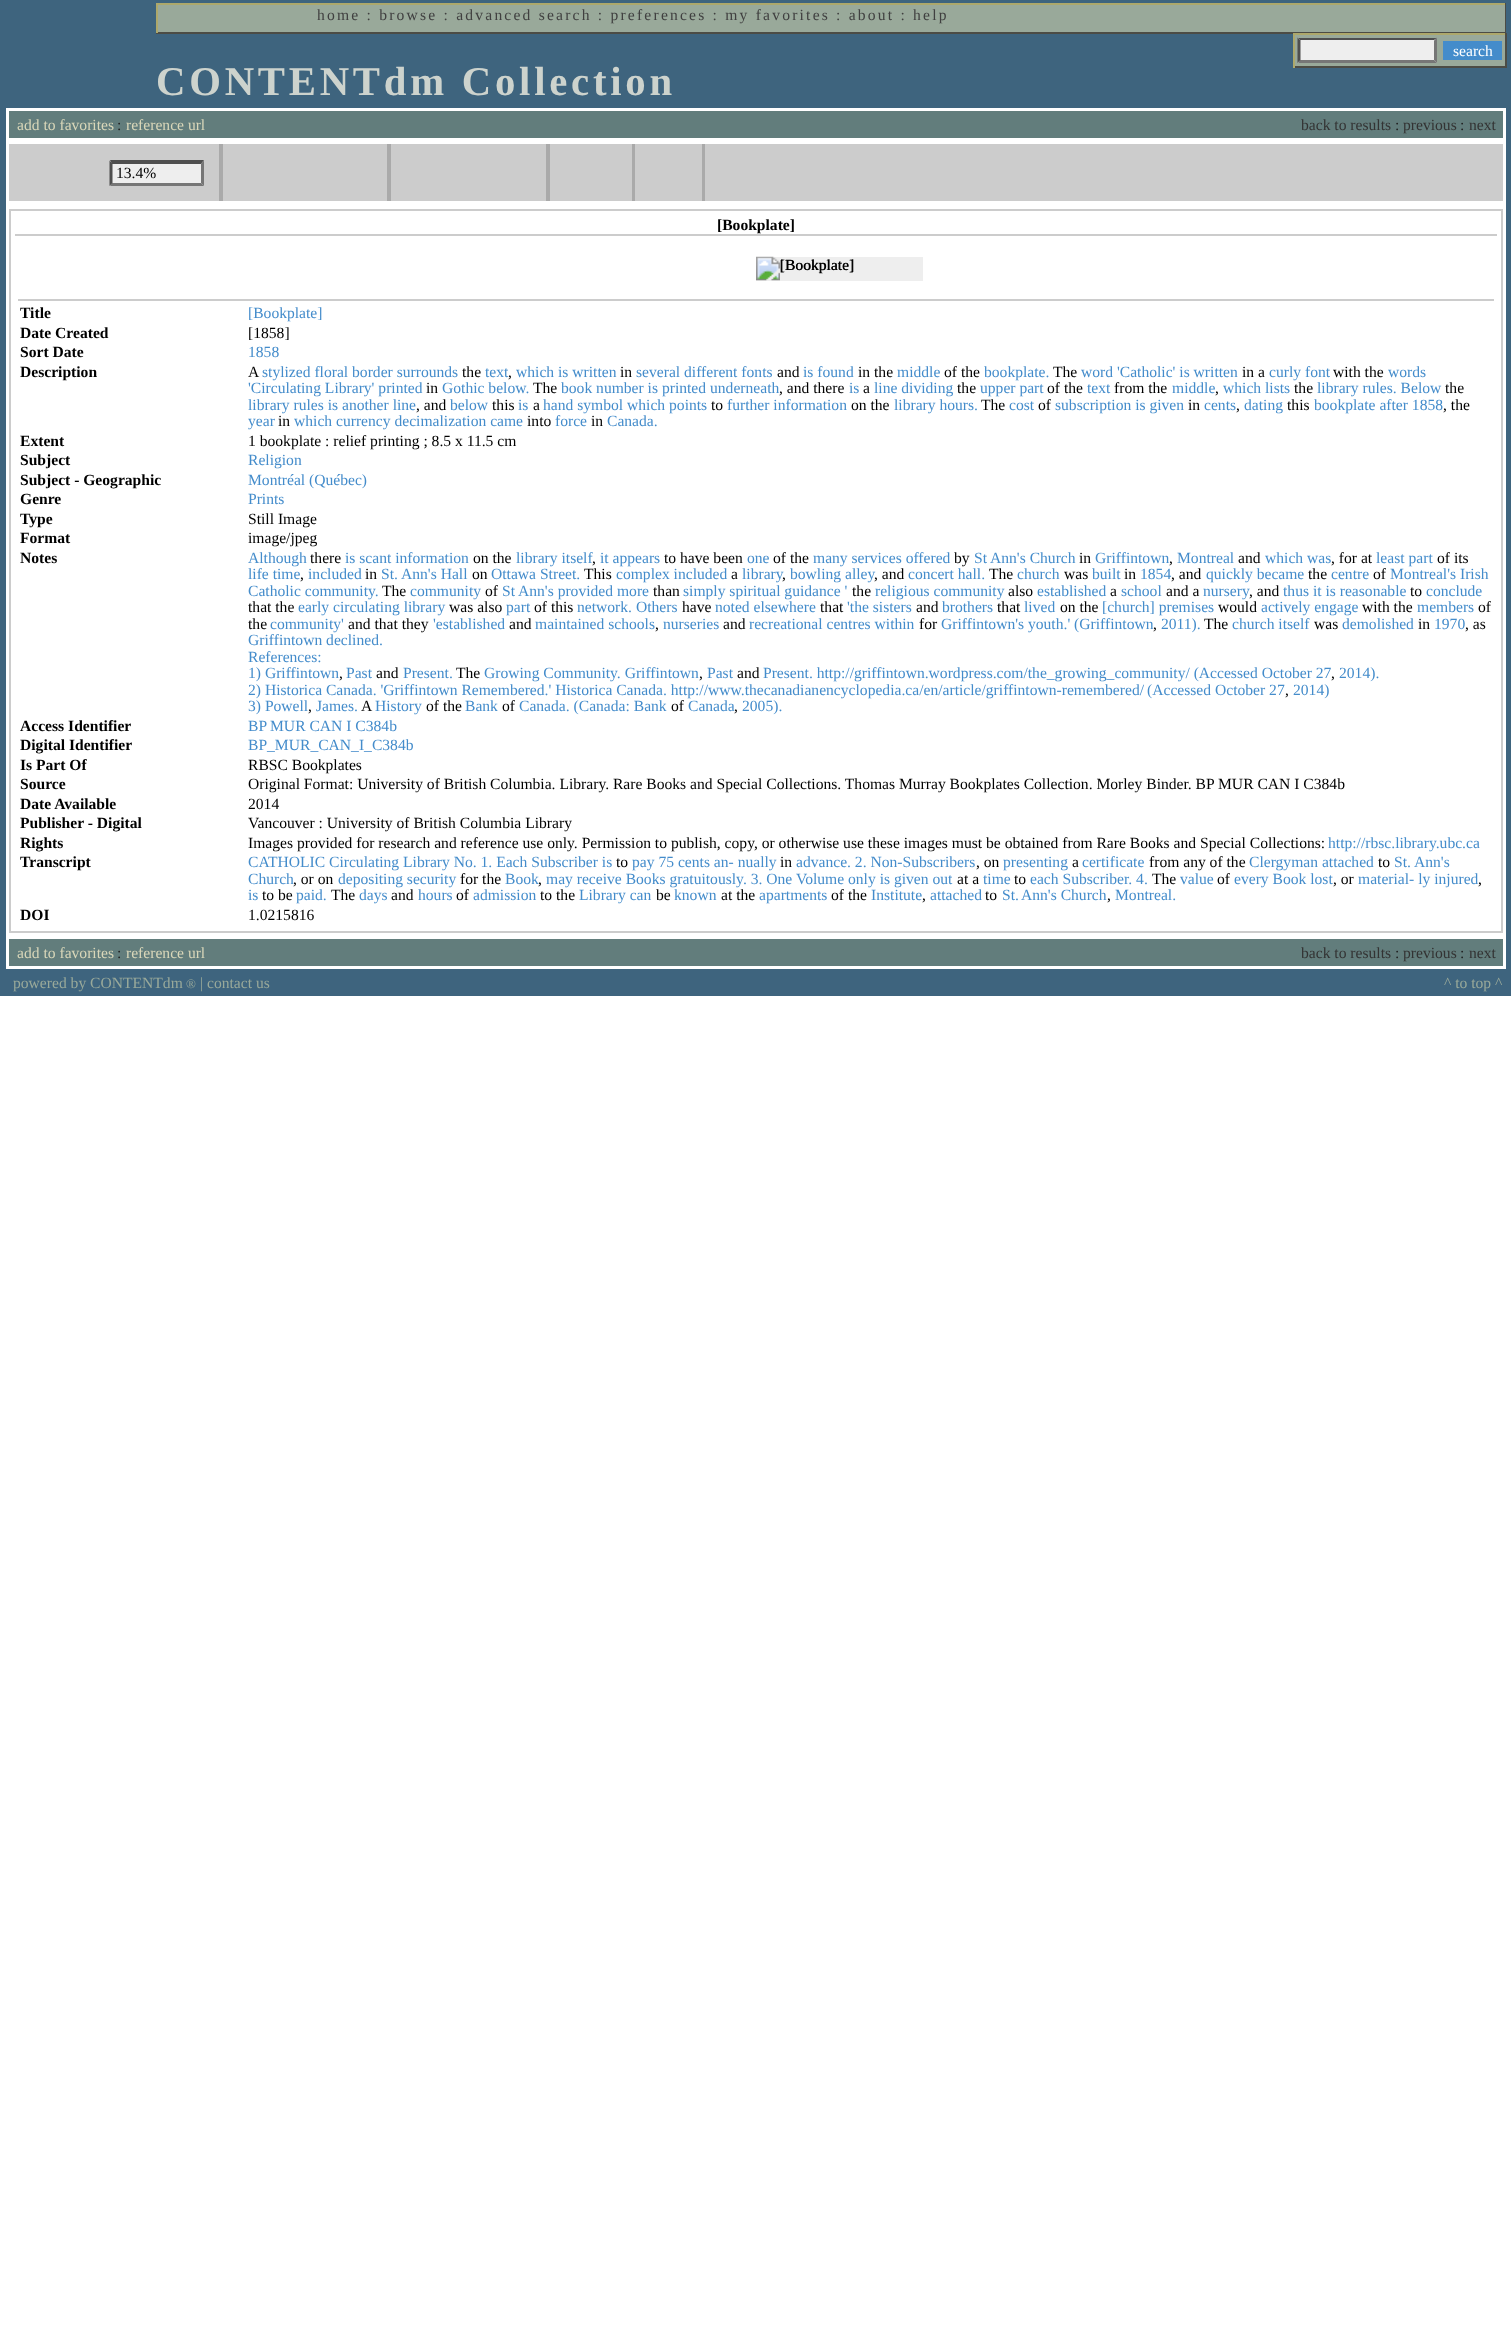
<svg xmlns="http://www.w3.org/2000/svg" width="1511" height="2332">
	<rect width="100%" height="100%" fill="#FFFFFF" />
	<rect x="0" y="0" width="6" height="996" fill="#3E647E" />
	<rect x="6" y="0" width="1500" height="108" fill="#3E647E" />
	<rect x="158" y="5" width="1347" height="27" fill="#99A99A" />
	<rect x="156" y="3" width="1350" height="2" fill="#ADA86B" />
	<rect x="156" y="32" width="1332" height="2" fill="#4C4C45" />
	<rect x="156" y="3" width="2" height="30" fill="#ADA86B" />
	<text x="317" y="20" font-family="Liberation Serif" font-size="15.6" letter-spacing="2.2" fill="#404040">home : browse : advanced search : preferences : my favorites : about : help</text>
	<rect x="1505" y="3" width="1" height="30" fill="#4C4C45" />
	<rect x="1488" y="32" width="18" height="1" fill="#4C4C45" />
	<rect x="1295" y="35" width="210" height="31" fill="#99A99A" />
	<rect x="1293" y="33" width="213" height="2" fill="#ADA86B" />
	<rect x="1293" y="66" width="147" height="2" fill="#4C4C45" />
	<rect x="1293" y="33" width="2" height="35" fill="#ADA86B" />
	<rect x="1298" y="38" width="139" height="25" fill="#EEEEEE" />
	<path d="M1298 38H1437L1434 40H1300Z" fill="#4F4F4F" />
	<path d="M1437 37.5V63L1434 60V40.5Z" fill="#767676" />
	<path d="M1437 63H1298L1300 60H1434Z" fill="#767676" />
	<path d="M1297.5 63V37.5L1300.5 40.5V60Z" fill="#4F4F4F" />
	<rect x="1506" y="0" width="5" height="996" fill="#3E647E" />
	<rect x="1505" y="33" width="2" height="35" fill="#4C4C45" />
	<rect x="1440" y="66" width="66" height="2" fill="#4C4C45" />
	<rect x="1443" y="41" width="59" height="19" fill="#448CCB" />
	<text x="1453" y="56" font-family="Liberation Serif" font-size="15.6" fill="#FFFFFF">search</text>
	<text x="156" y="95" font-family="Liberation Serif" font-size="40.75" font-weight="700" letter-spacing="3.75" fill="#CDD3CD">CONTENTdm Collection</text>
	<rect x="9" y="111" width="1494" height="27" fill="#627D7C" />
	<text x="17" y="130" font-family="Liberation Serif" font-size="15.6" fill="#D9D7B9">add to favorites</text>
	<text x="117" y="130" font-family="Liberation Serif" font-size="15.6" fill="#202020">:</text>
	<text x="126" y="130" font-family="Liberation Serif" font-size="15.6" fill="#D9D7B9">reference url</text>
	<text x="1301" y="130" font-family="Liberation Serif" font-size="15.6" fill="#333333">back to results</text>
	<text x="1395" y="130" font-family="Liberation Serif" font-size="15.6" fill="#202020">:</text>
	<text x="1403" y="130" font-family="Liberation Serif" font-size="15.6" fill="#333333">previous</text>
	<text x="1460" y="130" font-family="Liberation Serif" font-size="15.6" fill="#202020">:</text>
	<text x="1469" y="130" font-family="Liberation Serif" font-size="15.6" fill="#333333">next</text>
	<rect x="9" y="144" width="1494" height="57" fill="#CCCCCC" />
	<rect x="219" y="144" width="4" height="57" fill="#AAAAAA" />
	<rect x="110" y="161" width="94" height="25" fill="#EEEEEE" />
	<path d="M110 160H204L201 164H112Z" fill="#4F4F4F" />
	<path d="M204 160.5V186L201 183V163.5Z" fill="#767676" />
	<path d="M204 186H110L112 183H201Z" fill="#767676" />
	<path d="M109.5 186V160.5L112.5 163.5V183Z" fill="#4F4F4F" />
	<text x="116" y="178" font-family="Liberation Serif" font-size="15.6" fill="#000000">13.4%</text>
	<rect x="387" y="144" width="4" height="57" fill="#AAAAAA" />
	<rect x="546" y="144" width="4" height="57" fill="#AAAAAA" />
	<rect x="632" y="144" width="3" height="57" fill="#AAAAAA" />
	<rect x="702" y="144" width="3" height="57" fill="#AAAAAA" />
	<rect x="10" y="210" width="1492" height="722" fill="none" stroke="#CCCCCC" stroke-width="2" />
	<rect x="15" y="234" width="1482" height="2" fill="#CCCCCC" />
	<text x="717" y="230" font-family="Liberation Serif" font-size="15.6" font-weight="700" fill="#000000">[Bookplate]</text>
	<rect x="756" y="257" width="167" height="24" fill="#EEEEEE" />
	<image x="756" y="256" width="97" height="25" href="assets/img1.png" />
	<text x="780" y="270" font-family="Liberation Serif" font-size="15.6" fill="#000000">[Bookplate]</text>
	<rect x="18" y="299" width="1476" height="2" fill="#CCCCCC" />
	<text x="20" y="318" font-family="Liberation Serif" font-size="15.6" font-weight="700" fill="#000000">Title</text>
	<text x="248" y="318" font-family="Liberation Serif" font-size="15.6" fill="#448CCB">[Bookplate]</text>
	<text x="20" y="338" font-family="Liberation Serif" font-size="15.6" font-weight="700" fill="#000000">Date Created</text>
	<text x="248" y="338" font-family="Liberation Serif" font-size="15.6" fill="#000000">[1858]</text>
	<text x="20" y="357" font-family="Liberation Serif" font-size="15.6" font-weight="700" fill="#000000">Sort Date</text>
	<text x="248" y="357" font-family="Liberation Serif" font-size="15.6" fill="#448CCB">1858</text>
	<text x="20" y="377" font-family="Liberation Serif" font-size="15.6" font-weight="700" fill="#000000">Description</text>
	<text x="248" y="377" font-family="Liberation Serif" font-size="15.6" fill="#000000">A</text>
	<text x="262" y="377" font-family="Liberation Serif" font-size="15.6" fill="#448CCB">stylized floral border surrounds</text>
	<text x="462" y="377" font-family="Liberation Serif" font-size="15.6" fill="#000000">the</text>
	<text x="485" y="377" font-family="Liberation Serif" font-size="15.6" fill="#448CCB">text</text>
	<text x="508" y="377" font-family="Liberation Serif" font-size="15.6" fill="#000000">,</text>
	<text x="516" y="377" font-family="Liberation Serif" font-size="15.6" fill="#448CCB">which is written</text>
	<text x="620" y="377" font-family="Liberation Serif" font-size="15.6" fill="#000000">in</text>
	<text x="636" y="377" font-family="Liberation Serif" font-size="15.6" fill="#448CCB">several different fonts</text>
	<text x="777" y="377" font-family="Liberation Serif" font-size="15.6" fill="#000000">and</text>
	<text x="803" y="377" font-family="Liberation Serif" font-size="15.6" fill="#448CCB">is found</text>
	<text x="858" y="377" font-family="Liberation Serif" font-size="15.6" fill="#000000">in the</text>
	<text x="897" y="377" font-family="Liberation Serif" font-size="15.6" fill="#448CCB">middle</text>
	<text x="944" y="377" font-family="Liberation Serif" font-size="15.6" fill="#000000">of the</text>
	<text x="984" y="377" font-family="Liberation Serif" font-size="15.6" fill="#448CCB">bookplate.</text>
	<text x="1053" y="377" font-family="Liberation Serif" font-size="15.6" fill="#000000">The</text>
	<text x="1081" y="377" font-family="Liberation Serif" font-size="15.6" fill="#448CCB">word 'Catholic' is written</text>
	<text x="1242" y="377" font-family="Liberation Serif" font-size="15.6" fill="#000000">in a</text>
	<text x="1269" y="377" font-family="Liberation Serif" font-size="15.6" fill="#448CCB">curly font</text>
	<text x="1333" y="377" font-family="Liberation Serif" font-size="15.6" fill="#000000">with the</text>
	<g font-family="Liberation Serif" font-size="15.6" fill="#448CCB">
		<text x="1388" y="377">words</text>
		<text x="248" y="393">'Circulating Library' printed</text>
	</g>
	<text x="426" y="393" font-family="Liberation Serif" font-size="15.6" fill="#000000">in</text>
	<text x="442" y="393" font-family="Liberation Serif" font-size="15.6" fill="#448CCB">Gothic below.</text>
	<text x="533" y="393" font-family="Liberation Serif" font-size="15.6" fill="#000000">The</text>
	<text x="561" y="393" font-family="Liberation Serif" font-size="15.6" fill="#448CCB">book number is printed underneath</text>
	<text x="779" y="393" font-family="Liberation Serif" font-size="15.6" fill="#000000">, and there</text>
	<text x="849" y="393" font-family="Liberation Serif" font-size="15.6" fill="#448CCB">is</text>
	<text x="863" y="393" font-family="Liberation Serif" font-size="15.6" fill="#000000">a</text>
	<text x="874" y="393" font-family="Liberation Serif" font-size="15.6" fill="#448CCB">line dividing</text>
	<text x="957" y="393" font-family="Liberation Serif" font-size="15.6" fill="#000000">the</text>
	<text x="980" y="393" font-family="Liberation Serif" font-size="15.6" fill="#448CCB">upper part</text>
	<text x="1047" y="393" font-family="Liberation Serif" font-size="15.6" fill="#000000">of the</text>
	<text x="1087" y="393" font-family="Liberation Serif" font-size="15.6" fill="#448CCB">text</text>
	<text x="1114" y="393" font-family="Liberation Serif" font-size="15.6" fill="#000000">from the</text>
	<text x="1172" y="393" font-family="Liberation Serif" font-size="15.6" fill="#448CCB">middle</text>
	<text x="1215" y="393" font-family="Liberation Serif" font-size="15.6" fill="#000000">,</text>
	<text x="1223" y="393" font-family="Liberation Serif" font-size="15.6" fill="#448CCB">which lists</text>
	<text x="1294" y="393" font-family="Liberation Serif" font-size="15.6" fill="#000000">the</text>
	<text x="1317" y="393" font-family="Liberation Serif" font-size="15.6" fill="#448CCB">library rules. Below</text>
	<text x="1445" y="393" font-family="Liberation Serif" font-size="15.6" fill="#000000">the</text>
	<text x="248" y="410" font-family="Liberation Serif" font-size="15.6" fill="#448CCB">library rules is another line</text>
	<text x="416" y="410" font-family="Liberation Serif" font-size="15.6" fill="#000000">, and</text>
	<text x="450" y="410" font-family="Liberation Serif" font-size="15.6" fill="#448CCB">below</text>
	<text x="492" y="410" font-family="Liberation Serif" font-size="15.6" fill="#000000">this</text>
	<text x="518" y="410" font-family="Liberation Serif" font-size="15.6" fill="#448CCB">is</text>
	<text x="533" y="410" font-family="Liberation Serif" font-size="15.6" fill="#000000">a</text>
	<text x="543" y="410" font-family="Liberation Serif" font-size="15.6" fill="#448CCB">hand symbol which points</text>
	<text x="711" y="410" font-family="Liberation Serif" font-size="15.6" fill="#000000">to</text>
	<text x="727" y="410" font-family="Liberation Serif" font-size="15.6" fill="#448CCB">further information</text>
	<text x="851" y="410" font-family="Liberation Serif" font-size="15.6" fill="#000000">on the</text>
	<text x="894" y="410" font-family="Liberation Serif" font-size="15.6" fill="#448CCB">library hours.</text>
	<text x="981" y="410" font-family="Liberation Serif" font-size="15.6" fill="#000000">The</text>
	<text x="1009" y="410" font-family="Liberation Serif" font-size="15.6" fill="#448CCB">cost</text>
	<text x="1038" y="410" font-family="Liberation Serif" font-size="15.6" fill="#000000">of</text>
	<text x="1055" y="410" font-family="Liberation Serif" font-size="15.6" fill="#448CCB">subscription is given</text>
	<text x="1188" y="410" font-family="Liberation Serif" font-size="15.6" fill="#000000">in</text>
	<text x="1204" y="410" font-family="Liberation Serif" font-size="15.6" fill="#448CCB">cents</text>
	<text x="1236" y="410" font-family="Liberation Serif" font-size="15.6" fill="#000000">,</text>
	<text x="1244" y="410" font-family="Liberation Serif" font-size="15.6" fill="#448CCB">dating</text>
	<text x="1287" y="410" font-family="Liberation Serif" font-size="15.6" fill="#000000">this</text>
	<text x="1314" y="410" font-family="Liberation Serif" font-size="15.6" fill="#448CCB">bookplate after 1858</text>
	<text x="1443" y="410" font-family="Liberation Serif" font-size="15.6" fill="#000000">, the</text>
	<text x="248" y="426" font-family="Liberation Serif" font-size="15.6" fill="#448CCB">year</text>
	<text x="278" y="426" font-family="Liberation Serif" font-size="15.6" fill="#000000">in</text>
	<text x="294" y="426" font-family="Liberation Serif" font-size="15.6" fill="#448CCB">which currency decimalization came</text>
	<text x="527" y="426" font-family="Liberation Serif" font-size="15.6" fill="#000000">into</text>
	<text x="555" y="426" font-family="Liberation Serif" font-size="15.6" fill="#448CCB">force</text>
	<text x="591" y="426" font-family="Liberation Serif" font-size="15.6" fill="#000000">in</text>
	<text x="607" y="426" font-family="Liberation Serif" font-size="15.6" fill="#448CCB">Canada.</text>
	<text x="20" y="446" font-family="Liberation Serif" font-size="15.6" font-weight="700" fill="#000000">Extent</text>
	<text x="248" y="446" font-family="Liberation Serif" font-size="15.6" fill="#000000">1 bookplate : relief printing ; 8.5 x 11.5 cm</text>
	<text x="20" y="465" font-family="Liberation Serif" font-size="15.6" font-weight="700" fill="#000000">Subject</text>
	<text x="248" y="465" font-family="Liberation Serif" font-size="15.6" fill="#448CCB">Religion</text>
	<text x="20" y="485" font-family="Liberation Serif" font-size="15.6" font-weight="700" fill="#000000">Subject - Geographic</text>
	<text x="248" y="485" font-family="Liberation Serif" font-size="15.6" fill="#448CCB">Montréal (Québec)</text>
	<text x="20" y="504" font-family="Liberation Serif" font-size="15.6" font-weight="700" fill="#000000">Genre</text>
	<text x="248" y="504" font-family="Liberation Serif" font-size="15.6" fill="#448CCB">Prints</text>
	<text x="20" y="524" font-family="Liberation Serif" font-size="15.6" font-weight="700" fill="#000000">Type</text>
	<text x="248" y="524" font-family="Liberation Serif" font-size="15.6" fill="#000000">Still Image</text>
	<text x="20" y="543" font-family="Liberation Serif" font-size="15.6" font-weight="700" fill="#000000">Format</text>
	<text x="248" y="543" font-family="Liberation Serif" font-size="15.6" fill="#000000">image/jpeg</text>
	<text x="20" y="563" font-family="Liberation Serif" font-size="15.6" font-weight="700" fill="#000000">Notes</text>
	<text x="248" y="563" font-family="Liberation Serif" font-size="15.6" fill="#448CCB">Although</text>
	<text x="310" y="563" font-family="Liberation Serif" font-size="15.6" fill="#000000">there</text>
	<text x="345" y="563" font-family="Liberation Serif" font-size="15.6" fill="#448CCB">is scant information</text>
	<text x="473" y="563" font-family="Liberation Serif" font-size="15.6" fill="#000000">on the</text>
	<text x="516" y="563" font-family="Liberation Serif" font-size="15.6" fill="#448CCB">library itself</text>
	<text x="592" y="563" font-family="Liberation Serif" font-size="15.6" fill="#000000">,</text>
	<text x="600" y="563" font-family="Liberation Serif" font-size="15.6" fill="#448CCB">it appears</text>
	<text x="664" y="563" font-family="Liberation Serif" font-size="15.6" fill="#000000">to have been</text>
	<text x="747" y="563" font-family="Liberation Serif" font-size="15.6" fill="#448CCB">one</text>
	<text x="773" y="563" font-family="Liberation Serif" font-size="15.6" fill="#000000">of the</text>
	<text x="813" y="563" font-family="Liberation Serif" font-size="15.6" fill="#448CCB">many services offered</text>
	<text x="954" y="563" font-family="Liberation Serif" font-size="15.6" fill="#000000">by</text>
	<g font-family="Liberation Serif" font-size="15.6" fill="#448CCB">
		<text x="974" y="563">St</text>
		<text x="990" y="563">Ann's Church</text>
	</g>
	<text x="1079" y="563" font-family="Liberation Serif" font-size="15.6" fill="#000000">in</text>
	<text x="1095" y="563" font-family="Liberation Serif" font-size="15.6" fill="#448CCB">Griffintown</text>
	<text x="1169" y="563" font-family="Liberation Serif" font-size="15.6" fill="#000000">,</text>
	<text x="1177" y="563" font-family="Liberation Serif" font-size="15.6" fill="#448CCB">Montreal</text>
	<text x="1238" y="563" font-family="Liberation Serif" font-size="15.6" fill="#000000">and</text>
	<text x="1265" y="563" font-family="Liberation Serif" font-size="15.6" fill="#448CCB">which was</text>
	<text x="1331" y="563" font-family="Liberation Serif" font-size="15.6" fill="#000000">, for at</text>
	<text x="1376" y="563" font-family="Liberation Serif" font-size="15.6" fill="#448CCB">least part</text>
	<text x="1437" y="563" font-family="Liberation Serif" font-size="15.6" fill="#000000">of its</text>
	<text x="248" y="579" font-family="Liberation Serif" font-size="15.6" fill="#448CCB">life time</text>
	<text x="300" y="579" font-family="Liberation Serif" font-size="15.6" fill="#000000">,</text>
	<text x="308" y="579" font-family="Liberation Serif" font-size="15.6" fill="#448CCB">included</text>
	<text x="365" y="579" font-family="Liberation Serif" font-size="15.6" fill="#000000">in</text>
	<g font-family="Liberation Serif" font-size="15.6" fill="#448CCB">
		<text x="381" y="579">St.</text>
		<text x="401" y="579">Ann's Hall</text>
	</g>
	<text x="472" y="579" font-family="Liberation Serif" font-size="15.6" fill="#000000">on</text>
	<text x="491" y="579" font-family="Liberation Serif" font-size="15.6" fill="#448CCB">Ottawa Street.</text>
	<text x="584" y="579" font-family="Liberation Serif" font-size="15.6" fill="#000000">This</text>
	<text x="616" y="579" font-family="Liberation Serif" font-size="15.6" fill="#448CCB">complex included</text>
	<text x="731" y="579" font-family="Liberation Serif" font-size="15.6" fill="#000000">a</text>
	<g font-family="Liberation Serif" font-size="15.6" fill="#448CCB">
		<text x="742" y="579">library</text>
		<text x="790" y="579">bowling alley</text>
	</g>
	<text x="874" y="579" font-family="Liberation Serif" font-size="15.6" fill="#000000">, and</text>
	<text x="908" y="579" font-family="Liberation Serif" font-size="15.6" fill="#448CCB">concert hall.</text>
	<text x="989" y="579" font-family="Liberation Serif" font-size="15.6" fill="#000000">The</text>
	<text x="1017" y="579" font-family="Liberation Serif" font-size="15.6" fill="#448CCB">church</text>
	<text x="1064" y="579" font-family="Liberation Serif" font-size="15.6" fill="#000000">was</text>
	<text x="1092" y="579" font-family="Liberation Serif" font-size="15.6" fill="#448CCB">built</text>
	<text x="1124" y="579" font-family="Liberation Serif" font-size="15.6" fill="#000000">in</text>
	<text x="1140" y="579" font-family="Liberation Serif" font-size="15.6" fill="#448CCB">1854</text>
	<text x="1171" y="579" font-family="Liberation Serif" font-size="15.6" fill="#000000">, and</text>
	<text x="1206" y="579" font-family="Liberation Serif" font-size="15.6" fill="#448CCB">quickly became</text>
	<text x="1308" y="579" font-family="Liberation Serif" font-size="15.6" fill="#000000">the</text>
	<text x="1331" y="579" font-family="Liberation Serif" font-size="15.6" fill="#448CCB">centre</text>
	<text x="1373" y="579" font-family="Liberation Serif" font-size="15.6" fill="#000000">of</text>
	<text x="1390" y="579" font-family="Liberation Serif" font-size="15.6" fill="#448CCB">Montreal's Irish</text>
	<text x="782" y="579" font-family="Liberation Serif" font-size="15.6" fill="#000000">,</text>
	<text x="248" y="596" font-family="Liberation Serif" font-size="15.6" fill="#448CCB">Catholic community.</text>
	<text x="382" y="596" font-family="Liberation Serif" font-size="15.6" fill="#000000">The</text>
	<text x="410" y="596" font-family="Liberation Serif" font-size="15.6" fill="#448CCB">community</text>
	<text x="485" y="596" font-family="Liberation Serif" font-size="15.6" fill="#000000">of</text>
	<g font-family="Liberation Serif" font-size="15.6" fill="#448CCB">
		<text x="502" y="596">St</text>
		<text x="518" y="596">Ann's provided more</text>
	</g>
	<text x="653" y="596" font-family="Liberation Serif" font-size="15.6" fill="#000000">than</text>
	<text x="683" y="596" font-family="Liberation Serif" font-size="15.6" fill="#448CCB">simply spiritual guidance '</text>
	<text x="852" y="596" font-family="Liberation Serif" font-size="15.6" fill="#000000">the</text>
	<text x="875" y="596" font-family="Liberation Serif" font-size="15.6" fill="#448CCB">religious community</text>
	<text x="1008" y="596" font-family="Liberation Serif" font-size="15.6" fill="#000000">also</text>
	<text x="1037" y="596" font-family="Liberation Serif" font-size="15.6" fill="#448CCB">established</text>
	<text x="1110" y="596" font-family="Liberation Serif" font-size="15.6" fill="#000000">a</text>
	<text x="1121" y="596" font-family="Liberation Serif" font-size="15.6" fill="#448CCB">school</text>
	<text x="1166" y="596" font-family="Liberation Serif" font-size="15.6" fill="#000000">and a</text>
	<text x="1203" y="596" font-family="Liberation Serif" font-size="15.6" fill="#448CCB">nursery</text>
	<text x="1249" y="596" font-family="Liberation Serif" font-size="15.6" fill="#000000">, and</text>
	<text x="1283" y="596" font-family="Liberation Serif" font-size="15.6" fill="#448CCB">thus it is reasonable</text>
	<text x="1410" y="596" font-family="Liberation Serif" font-size="15.6" fill="#000000">to</text>
	<text x="1426" y="596" font-family="Liberation Serif" font-size="15.6" fill="#448CCB">conclude</text>
	<text x="248" y="612" font-family="Liberation Serif" font-size="15.6" fill="#000000">that the</text>
	<text x="298" y="612" font-family="Liberation Serif" font-size="15.6" fill="#448CCB">early circulating library</text>
	<text x="449" y="612" font-family="Liberation Serif" font-size="15.6" fill="#000000">was also</text>
	<text x="506" y="612" font-family="Liberation Serif" font-size="15.6" fill="#448CCB">part</text>
	<text x="534" y="612" font-family="Liberation Serif" font-size="15.6" fill="#000000">of this</text>
	<text x="577" y="612" font-family="Liberation Serif" font-size="15.6" fill="#448CCB">network. Others</text>
	<text x="682" y="612" font-family="Liberation Serif" font-size="15.6" fill="#000000">have</text>
	<text x="715" y="612" font-family="Liberation Serif" font-size="15.6" fill="#448CCB">noted elsewhere</text>
	<text x="820" y="612" font-family="Liberation Serif" font-size="15.6" fill="#000000">that</text>
	<text x="847" y="612" font-family="Liberation Serif" font-size="15.6" fill="#448CCB">'the sisters</text>
	<text x="916" y="612" font-family="Liberation Serif" font-size="15.6" fill="#000000">and</text>
	<text x="942" y="612" font-family="Liberation Serif" font-size="15.6" fill="#448CCB">brothers</text>
	<text x="997" y="612" font-family="Liberation Serif" font-size="15.6" fill="#000000">that</text>
	<text x="1024" y="612" font-family="Liberation Serif" font-size="15.6" fill="#448CCB">lived</text>
	<text x="1060" y="612" font-family="Liberation Serif" font-size="15.6" fill="#000000">on the</text>
	<text x="1102" y="612" font-family="Liberation Serif" font-size="15.6" fill="#448CCB">[church] premises</text>
	<text x="1218" y="612" font-family="Liberation Serif" font-size="15.6" fill="#000000">would</text>
	<text x="1261" y="612" font-family="Liberation Serif" font-size="15.6" fill="#448CCB">actively engage</text>
	<text x="1362" y="612" font-family="Liberation Serif" font-size="15.6" fill="#000000">with the</text>
	<text x="1417" y="612" font-family="Liberation Serif" font-size="15.6" fill="#448CCB">members</text>
	<g font-family="Liberation Serif" font-size="15.6" fill="#000000">
		<text x="1478" y="612">of</text>
		<text x="248" y="629">the</text>
	</g>
	<text x="270" y="629" font-family="Liberation Serif" font-size="15.6" fill="#448CCB">community'</text>
	<text x="348" y="629" font-family="Liberation Serif" font-size="15.6" fill="#000000">and that they</text>
	<text x="433" y="629" font-family="Liberation Serif" font-size="15.6" fill="#448CCB">'established</text>
	<text x="509" y="629" font-family="Liberation Serif" font-size="15.6" fill="#000000">and</text>
	<text x="535" y="629" font-family="Liberation Serif" font-size="15.6" fill="#448CCB">maintained schools</text>
	<text x="655" y="629" font-family="Liberation Serif" font-size="15.6" fill="#000000">,</text>
	<text x="663" y="629" font-family="Liberation Serif" font-size="15.6" fill="#448CCB">nurseries</text>
	<text x="723" y="629" font-family="Liberation Serif" font-size="15.6" fill="#000000">and</text>
	<text x="749" y="629" font-family="Liberation Serif" font-size="15.6" fill="#448CCB">recreational centres within</text>
	<text x="919" y="629" font-family="Liberation Serif" font-size="15.6" fill="#000000">for</text>
	<text x="941" y="629" font-family="Liberation Serif" font-size="15.6" fill="#448CCB">Griffintown's youth.' (Griffintown</text>
	<text x="1153" y="629" font-family="Liberation Serif" font-size="15.6" fill="#000000">,</text>
	<text x="1161" y="629" font-family="Liberation Serif" font-size="15.6" fill="#448CCB">2011).</text>
	<text x="1204" y="629" font-family="Liberation Serif" font-size="15.6" fill="#000000">The</text>
	<text x="1232" y="629" font-family="Liberation Serif" font-size="15.6" fill="#448CCB">church itself</text>
	<text x="1314" y="629" font-family="Liberation Serif" font-size="15.6" fill="#000000">was</text>
	<text x="1342" y="629" font-family="Liberation Serif" font-size="15.6" fill="#448CCB">demolished</text>
	<text x="1418" y="629" font-family="Liberation Serif" font-size="15.6" fill="#000000">in</text>
	<text x="1434" y="629" font-family="Liberation Serif" font-size="15.6" fill="#448CCB">1970</text>
	<text x="1465" y="629" font-family="Liberation Serif" font-size="15.6" fill="#000000">, as</text>
	<g font-family="Liberation Serif" font-size="15.6" fill="#448CCB">
		<text x="248" y="645">Griffintown declined.</text>
		<text x="248" y="662">References:</text>
		<text x="248" y="678">1) Griffintown</text>
	</g>
	<text x="339" y="678" font-family="Liberation Serif" font-size="15.6" fill="#000000">,</text>
	<text x="346" y="678" font-family="Liberation Serif" font-size="15.6" fill="#448CCB">Past</text>
	<text x="376" y="678" font-family="Liberation Serif" font-size="15.6" fill="#000000">and</text>
	<text x="403" y="678" font-family="Liberation Serif" font-size="15.6" fill="#448CCB">Present.</text>
	<text x="456" y="678" font-family="Liberation Serif" font-size="15.6" fill="#000000">The</text>
	<text x="484" y="678" font-family="Liberation Serif" font-size="15.6" fill="#448CCB">Growing Community. Griffintown</text>
	<text x="699" y="678" font-family="Liberation Serif" font-size="15.6" fill="#000000">,</text>
	<text x="707" y="678" font-family="Liberation Serif" font-size="15.6" fill="#448CCB">Past</text>
	<text x="737" y="678" font-family="Liberation Serif" font-size="15.6" fill="#000000">and</text>
	<text x="763" y="678" font-family="Liberation Serif" font-size="15.6" fill="#448CCB">Present. http://griffintown.wordpress.com/the_growing_community/ (Accessed October 27</text>
	<text x="1331" y="678" font-family="Liberation Serif" font-size="15.6" fill="#000000">,</text>
	<g font-family="Liberation Serif" font-size="15.6" fill="#448CCB">
		<text x="1339" y="678">2014).</text>
		<text x="248" y="695">2) Historica Canada. 'Griffintown Remembered.' Historica Canada. http://www.thecanadianencyclopedia.ca/en/article/griffintown-remembered/</text>
		<text x="1147" y="695">(Accessed October 27</text>
	</g>
	<text x="1285" y="695" font-family="Liberation Serif" font-size="15.6" fill="#000000">,</text>
	<g font-family="Liberation Serif" font-size="15.6" fill="#448CCB">
		<text x="1293" y="695">2014)</text>
		<text x="248" y="711">3) Powell</text>
	</g>
	<text x="308" y="711" font-family="Liberation Serif" font-size="15.6" fill="#000000">,</text>
	<text x="316" y="711" font-family="Liberation Serif" font-size="15.6" fill="#448CCB">James.</text>
	<text x="361" y="711" font-family="Liberation Serif" font-size="15.6" fill="#000000">A</text>
	<text x="375" y="711" font-family="Liberation Serif" font-size="15.6" fill="#448CCB">History</text>
	<text x="426" y="711" font-family="Liberation Serif" font-size="15.6" fill="#000000">of the</text>
	<text x="465" y="711" font-family="Liberation Serif" font-size="15.6" fill="#448CCB">Bank</text>
	<text x="502" y="711" font-family="Liberation Serif" font-size="15.6" fill="#000000">of</text>
	<text x="519" y="711" font-family="Liberation Serif" font-size="15.6" fill="#448CCB">Canada. (Canada: Bank</text>
	<text x="671" y="711" font-family="Liberation Serif" font-size="15.6" fill="#000000">of</text>
	<text x="688" y="711" font-family="Liberation Serif" font-size="15.6" fill="#448CCB">Canada</text>
	<text x="734" y="711" font-family="Liberation Serif" font-size="15.6" fill="#000000">,</text>
	<text x="742" y="711" font-family="Liberation Serif" font-size="15.6" fill="#448CCB">2005).</text>
	<text x="20" y="731" font-family="Liberation Serif" font-size="15.6" font-weight="700" fill="#000000">Access Identifier</text>
	<g font-family="Liberation Serif" font-size="15.6" fill="#448CCB">
		<text x="248" y="731">BP</text>
		<text x="270" y="731">MUR CAN I C384b</text>
	</g>
	<text x="20" y="750" font-family="Liberation Serif" font-size="15.6" font-weight="700" fill="#000000">Digital Identifier</text>
	<text x="248" y="750" font-family="Liberation Serif" font-size="15.6" fill="#448CCB">BP_MUR_CAN_I_C384b</text>
	<text x="20" y="770" font-family="Liberation Serif" font-size="15.6" font-weight="700" fill="#000000">Is Part Of</text>
	<text x="248" y="770" font-family="Liberation Serif" font-size="15.6" fill="#000000">RBSC Bookplates</text>
	<text x="20" y="789" font-family="Liberation Serif" font-size="15.6" font-weight="700" fill="#000000">Source</text>
	<text x="248" y="789" font-family="Liberation Serif" font-size="15.6" fill="#000000">Original Format: University of British Columbia. Library. Rare Books and Special Collections. Thomas Murray Bookplates Collection. Morley Binder. BP MUR CAN I C384b</text>
	<text x="20" y="809" font-family="Liberation Serif" font-size="15.6" font-weight="700" fill="#000000">Date Available</text>
	<text x="248" y="809" font-family="Liberation Serif" font-size="15.6" fill="#000000">2014</text>
	<text x="20" y="828" font-family="Liberation Serif" font-size="15.6" font-weight="700" fill="#000000">Publisher - Digital</text>
	<text x="248" y="828" font-family="Liberation Serif" font-size="15.6" fill="#000000">Vancouver : University of British Columbia Library</text>
	<text x="20" y="848" font-family="Liberation Serif" font-size="15.6" font-weight="700" fill="#000000">Rights</text>
	<text x="248" y="848" font-family="Liberation Serif" font-size="15.6" fill="#000000">Images provided for research and reference use only. Permission to publish, copy, or otherwise use these images must be obtained from Rare Books and Special Collections:</text>
	<text x="1328" y="848" font-family="Liberation Serif" font-size="15.6" fill="#448CCB">http://rbsc.library.ubc.ca</text>
	<text x="20" y="867" font-family="Liberation Serif" font-size="15.6" font-weight="700" fill="#000000">Transcript</text>
	<text x="248" y="867" font-family="Liberation Serif" font-size="15.6" fill="#448CCB">CATHOLIC Circulating Library No. 1. Each Subscriber is</text>
	<text x="616" y="867" font-family="Liberation Serif" font-size="15.6" fill="#000000">to</text>
	<text x="632" y="867" font-family="Liberation Serif" font-size="15.6" fill="#448CCB">pay 75 cents an- nually</text>
	<text x="780" y="867" font-family="Liberation Serif" font-size="15.6" fill="#000000">in</text>
	<text x="796" y="867" font-family="Liberation Serif" font-size="15.6" fill="#448CCB">advance. 2. Non-Subscribers</text>
	<text x="976" y="867" font-family="Liberation Serif" font-size="15.6" fill="#000000">, on</text>
	<text x="1003" y="867" font-family="Liberation Serif" font-size="15.6" fill="#448CCB">presenting</text>
	<text x="1072" y="867" font-family="Liberation Serif" font-size="15.6" fill="#000000">a</text>
	<text x="1082" y="867" font-family="Liberation Serif" font-size="15.6" fill="#448CCB">certificate</text>
	<text x="1149" y="867" font-family="Liberation Serif" font-size="15.6" fill="#000000">from any of the</text>
	<text x="1249" y="867" font-family="Liberation Serif" font-size="15.6" fill="#448CCB">Clergyman attached</text>
	<text x="1378" y="867" font-family="Liberation Serif" font-size="15.6" fill="#000000">to</text>
	<g font-family="Liberation Serif" font-size="15.6" fill="#448CCB">
		<text x="1394" y="867">St.</text>
		<text x="1414" y="867">Ann's</text>
		<text x="248" y="884">Church</text>
	</g>
	<text x="293" y="884" font-family="Liberation Serif" font-size="15.6" fill="#000000">, or on</text>
	<text x="338" y="884" font-family="Liberation Serif" font-size="15.6" fill="#448CCB">depositing security</text>
	<text x="460" y="884" font-family="Liberation Serif" font-size="15.6" fill="#000000">for the</text>
	<text x="505" y="884" font-family="Liberation Serif" font-size="15.6" fill="#448CCB">Book</text>
	<text x="538" y="884" font-family="Liberation Serif" font-size="15.6" fill="#000000">,</text>
	<text x="546" y="884" font-family="Liberation Serif" font-size="15.6" fill="#448CCB">may receive Books gratuitously. 3. One Volume only is given out</text>
	<text x="957" y="884" font-family="Liberation Serif" font-size="15.6" fill="#000000">at a</text>
	<text x="983" y="884" font-family="Liberation Serif" font-size="15.6" fill="#448CCB">time</text>
	<text x="1014" y="884" font-family="Liberation Serif" font-size="15.6" fill="#000000">to</text>
	<text x="1030" y="884" font-family="Liberation Serif" font-size="15.6" fill="#448CCB">each Subscriber. 4.</text>
	<text x="1152" y="884" font-family="Liberation Serif" font-size="15.6" fill="#000000">The</text>
	<text x="1180" y="884" font-family="Liberation Serif" font-size="15.6" fill="#448CCB">value</text>
	<text x="1217" y="884" font-family="Liberation Serif" font-size="15.6" fill="#000000">of</text>
	<text x="1234" y="884" font-family="Liberation Serif" font-size="15.6" fill="#448CCB">every Book lost</text>
	<text x="1333" y="884" font-family="Liberation Serif" font-size="15.6" fill="#000000">, or</text>
	<text x="1358" y="884" font-family="Liberation Serif" font-size="15.6" fill="#448CCB">material- ly injured</text>
	<text x="1478" y="884" font-family="Liberation Serif" font-size="15.6" fill="#000000">,</text>
	<text x="248" y="900" font-family="Liberation Serif" font-size="15.6" fill="#448CCB">is</text>
	<text x="262" y="900" font-family="Liberation Serif" font-size="15.6" fill="#000000">to be</text>
	<text x="296" y="900" font-family="Liberation Serif" font-size="15.6" fill="#448CCB">paid.</text>
	<text x="331" y="900" font-family="Liberation Serif" font-size="15.6" fill="#000000">The</text>
	<text x="359" y="900" font-family="Liberation Serif" font-size="15.6" fill="#448CCB">days</text>
	<text x="391" y="900" font-family="Liberation Serif" font-size="15.6" fill="#000000">and</text>
	<text x="418" y="900" font-family="Liberation Serif" font-size="15.6" fill="#448CCB">hours</text>
	<text x="456" y="900" font-family="Liberation Serif" font-size="15.6" fill="#000000">of</text>
	<text x="473" y="900" font-family="Liberation Serif" font-size="15.6" fill="#448CCB">admission</text>
	<text x="540" y="900" font-family="Liberation Serif" font-size="15.6" fill="#000000">to the</text>
	<text x="579" y="900" font-family="Liberation Serif" font-size="15.6" fill="#448CCB">Library can</text>
	<text x="656" y="900" font-family="Liberation Serif" font-size="15.6" fill="#000000">be</text>
	<text x="674" y="900" font-family="Liberation Serif" font-size="15.6" fill="#448CCB">known</text>
	<text x="721" y="900" font-family="Liberation Serif" font-size="15.6" fill="#000000">at the</text>
	<text x="759" y="900" font-family="Liberation Serif" font-size="15.6" fill="#448CCB">apartments</text>
	<text x="831" y="900" font-family="Liberation Serif" font-size="15.6" fill="#000000">of the</text>
	<text x="871" y="900" font-family="Liberation Serif" font-size="15.6" fill="#448CCB">Institute</text>
	<text x="922" y="900" font-family="Liberation Serif" font-size="15.6" fill="#000000">,</text>
	<text x="930" y="900" font-family="Liberation Serif" font-size="15.6" fill="#448CCB">attached</text>
	<text x="985" y="900" font-family="Liberation Serif" font-size="15.6" fill="#000000">to</text>
	<g font-family="Liberation Serif" font-size="15.6" fill="#448CCB">
		<text x="1002" y="900">St.</text>
		<text x="1021" y="900">Ann's Church</text>
	</g>
	<text x="1107" y="900" font-family="Liberation Serif" font-size="15.6" fill="#000000">,</text>
	<text x="1115" y="900" font-family="Liberation Serif" font-size="15.6" fill="#448CCB">Montreal.</text>
	<text x="20" y="920" font-family="Liberation Serif" font-size="15.6" font-weight="700" fill="#000000">DOI</text>
	<text x="248" y="920" font-family="Liberation Serif" font-size="15.6" fill="#000000">1.0215816</text>
	<rect x="9" y="939" width="1494" height="27" fill="#627D7C" />
	<text x="17" y="958" font-family="Liberation Serif" font-size="15.6" fill="#D9D7B9">add to favorites</text>
	<text x="117" y="958" font-family="Liberation Serif" font-size="15.6" fill="#202020">:</text>
	<text x="126" y="958" font-family="Liberation Serif" font-size="15.6" fill="#D9D7B9">reference url</text>
	<text x="1301" y="958" font-family="Liberation Serif" font-size="15.6" fill="#333333">back to results</text>
	<text x="1395" y="958" font-family="Liberation Serif" font-size="15.6" fill="#202020">:</text>
	<text x="1403" y="958" font-family="Liberation Serif" font-size="15.6" fill="#333333">previous</text>
	<text x="1460" y="958" font-family="Liberation Serif" font-size="15.6" fill="#202020">:</text>
	<text x="1469" y="958" font-family="Liberation Serif" font-size="15.6" fill="#333333">next</text>
	<rect x="6" y="969" width="1500" height="27" fill="#3E647E" />
	<text x="13" y="988" font-family="Liberation Serif" font-size="15.6" fill="#99A99A">powered by CONTENTdm</text>
	<text x="186" y="988" font-family="Liberation Serif" font-size="13" fill="#99A99A">®</text>
	<g font-family="Liberation Serif" font-size="15.6" fill="#99A99A">
		<text x="200" y="988">| contact us</text>
		<text x="1444" y="988">^ to top ^</text>
	</g>
</svg>
